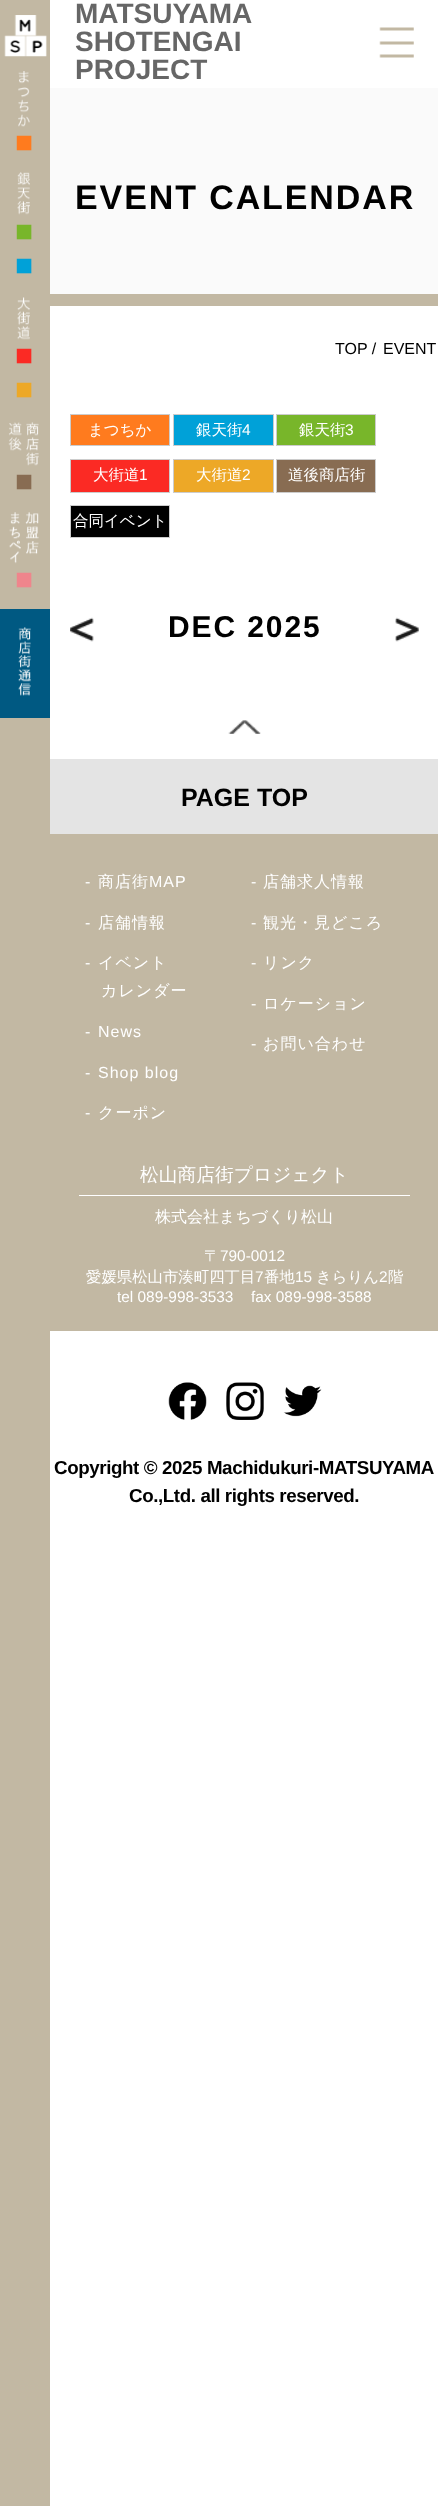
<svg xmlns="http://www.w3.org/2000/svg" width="438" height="2506">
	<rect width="100%" height="100%" fill="#FFFFFF" />
	<g font-family="Liberation Sans" font-size="28" font-weight="700" fill="#666666">
		<text x="75" y="23">MATSUYAMA</text>
		<text x="75" y="51">SHOTENGAI</text>
		<text x="75" y="79">PROJECT</text>
	</g>
	<image x="379" y="27" width="35" height="31" href="assets/img1.png" />
	<rect x="0" y="0" width="50" height="2506" fill="#C2B8A3" />
	<image x="4" y="15" width="43" height="42" href="assets/img2.png" />
	<image x="18" y="71" width="12" height="56" href="assets/img3.png" />
	<text x="15" y="152" font-family="Liberation Sans" font-size="30" letter-spacing="1.9" fill="#FF7B1E">■</text>
	<image x="17" y="172" width="13" height="43" href="assets/img4.png" />
	<text x="15" y="241" font-family="Liberation Sans" font-size="30" letter-spacing="1.9" fill="#78B62A">■</text>
	<text x="15" y="275" font-family="Liberation Sans" font-size="30" letter-spacing="1.9" fill="#00A1D8">■</text>
	<image x="17" y="297" width="13" height="43" href="assets/img5.png" />
	<text x="15" y="365" font-family="Liberation Sans" font-size="30" letter-spacing="1.9" fill="#FB2A24">■</text>
	<text x="15" y="399" font-family="Liberation Sans" font-size="30" letter-spacing="1.9" fill="#EDA827">■</text>
	<image x="8" y="422" width="31" height="44" href="assets/img6.png" />
	<text x="15" y="491" font-family="Liberation Sans" font-size="30" letter-spacing="1.9" fill="#886C52">■</text>
	<image x="9" y="512" width="30" height="52" href="assets/img7.png" />
	<text x="15" y="589" font-family="Liberation Sans" font-size="30" letter-spacing="1.9" fill="#EF858C">■</text>
	<rect x="0" y="609" width="50" height="109" fill="#005982" />
	<image x="18" y="627" width="13" height="69" href="assets/img8.png" />
	<rect x="50" y="88" width="388" height="206" fill="#FAFAFA" />
	<rect x="50" y="294" width="388" height="12" fill="#C2B8A3" />
	<text x="75" y="209" font-family="Liberation Sans" font-size="34" font-weight="700" letter-spacing="1.9" fill="#000000">EVENT CALENDAR</text>
	<g font-family="Liberation Sans" font-size="16" fill="#000000">
		<text x="335" y="354">TOP /</text>
		<text x="383" y="354">EVENT</text>
	</g>
	<rect x="70.5" y="414.5" width="99" height="31" fill="#FF7B1E" stroke="#CCCCCC" />
	<text x="88" y="435" font-family="WenQuanYi Zen Hei" font-size="15.5" font-weight="500" fill="#FFFFFF">まつちか</text>
	<rect x="173.5" y="414.5" width="100" height="31" fill="#00A1D8" stroke="#CCCCCC" />
	<text x="196" y="435" font-family="WenQuanYi Zen Hei" font-size="15.5" font-weight="500" fill="#FFFFFF">銀天街</text>
	<text x="242" y="435" font-family="Liberation Sans" font-size="15.5" fill="#FFFFFF">4</text>
	<rect x="276.5" y="414.5" width="99" height="31" fill="#78B62A" stroke="#CCCCCC" />
	<text x="299" y="435" font-family="WenQuanYi Zen Hei" font-size="15.5" font-weight="500" fill="#FFFFFF">銀天街</text>
	<text x="345" y="435" font-family="Liberation Sans" font-size="15.5" fill="#FFFFFF">3</text>
	<rect x="70.5" y="459.5" width="99" height="33" fill="#FB2A24" stroke="#CCCCCC" />
	<text x="93" y="480" font-family="WenQuanYi Zen Hei" font-size="15.5" font-weight="500" fill="#FFFFFF">大街道</text>
	<text x="139" y="480" font-family="Liberation Sans" font-size="15.5" fill="#FFFFFF">1</text>
	<rect x="173.5" y="459.5" width="100" height="33" fill="#EDA827" stroke="#CCCCCC" />
	<text x="196" y="480" font-family="WenQuanYi Zen Hei" font-size="15.5" font-weight="500" fill="#FFFFFF">大街道</text>
	<text x="242" y="480" font-family="Liberation Sans" font-size="15.5" fill="#FFFFFF">2</text>
	<rect x="276.5" y="459.5" width="99" height="33" fill="#886C52" stroke="#CCCCCC" />
	<text x="288" y="480" font-family="WenQuanYi Zen Hei" font-size="15.5" font-weight="500" fill="#FFFFFF">道後商店街</text>
	<rect x="70.5" y="505.5" width="99" height="32" fill="#000000" stroke="#CCCCCC" />
	<text x="73" y="526" font-family="WenQuanYi Zen Hei" font-size="15.5" font-weight="500" fill="#FFFFFF">合同イベント</text>
	<image x="70" y="617" width="24" height="25" href="assets/img9.png" />
	<text x="168" y="637" font-family="Liberation Sans" font-size="30" font-weight="700" letter-spacing="1.9" fill="#000000">DEC 2025</text>
	<image x="395" y="617" width="24" height="25" href="assets/img10.png" />
	<image x="228" y="720" width="33" height="14" href="assets/img11.png" />
	<rect x="50" y="759" width="388" height="75" fill="#E4E4E4" />
	<text x="181" y="806" font-family="Liberation Sans" font-size="25" font-weight="700" fill="#000000">PAGE TOP</text>
	<rect x="50" y="834" width="388" height="497" fill="#C2B8A3" />
	<text x="85" y="887" font-family="Liberation Sans" font-size="16" letter-spacing="1" fill="#FFFFFF">-</text>
	<text x="98" y="887" font-family="WenQuanYi Zen Hei" font-size="16" font-weight="500" letter-spacing="1" fill="#FFFFFF">商店街</text>
	<g font-family="Liberation Sans" font-size="16" letter-spacing="1" fill="#FFFFFF">
		<text x="149" y="887">MAP</text>
		<text x="85" y="928">-</text>
	</g>
	<text x="98" y="928" font-family="WenQuanYi Zen Hei" font-size="16" font-weight="500" letter-spacing="1" fill="#FFFFFF">店舗情報</text>
	<text x="85" y="968" font-family="Liberation Sans" font-size="16" letter-spacing="1" fill="#FFFFFF">-</text>
	<g font-family="WenQuanYi Zen Hei" font-size="16" font-weight="500" letter-spacing="1" fill="#FFFFFF">
		<text x="98" y="968">イベント</text>
		<text x="101" y="996">カレンダー</text>
	</g>
	<g font-family="Liberation Sans" font-size="16" letter-spacing="1" fill="#FFFFFF">
		<text x="85" y="1037">-</text>
		<text x="98" y="1037">News</text>
		<text x="85" y="1078">-</text>
		<text x="98" y="1078">Shop blog</text>
		<text x="85" y="1118">-</text>
	</g>
	<text x="98" y="1118" font-family="WenQuanYi Zen Hei" font-size="16" font-weight="500" letter-spacing="1" fill="#FFFFFF">クーポン</text>
	<text x="251" y="887" font-family="Liberation Sans" font-size="16" letter-spacing="1" fill="#FFFFFF">-</text>
	<text x="263" y="887" font-family="WenQuanYi Zen Hei" font-size="16" font-weight="500" letter-spacing="1" fill="#FFFFFF">店舗求人情報</text>
	<text x="251" y="928" font-family="Liberation Sans" font-size="16" letter-spacing="1" fill="#FFFFFF">-</text>
	<text x="263" y="928" font-family="WenQuanYi Zen Hei" font-size="16" font-weight="500" letter-spacing="1" fill="#FFFFFF">観光・見どころ</text>
	<text x="251" y="968" font-family="Liberation Sans" font-size="16" letter-spacing="1" fill="#FFFFFF">-</text>
	<text x="263" y="968" font-family="WenQuanYi Zen Hei" font-size="16" font-weight="500" letter-spacing="1" fill="#FFFFFF">リンク</text>
	<text x="251" y="1009" font-family="Liberation Sans" font-size="16" letter-spacing="1" fill="#FFFFFF">-</text>
	<text x="263" y="1009" font-family="WenQuanYi Zen Hei" font-size="16" font-weight="500" letter-spacing="1" fill="#FFFFFF">ロケーション</text>
	<text x="251" y="1049" font-family="Liberation Sans" font-size="16" letter-spacing="1" fill="#FFFFFF">-</text>
	<text x="263" y="1049" font-family="WenQuanYi Zen Hei" font-size="16" font-weight="500" letter-spacing="1" fill="#FFFFFF">お問い合わせ</text>
	<rect x="79" y="1195" width="331" height="1" fill="#FFFFFF" />
	<text x="140" y="1181" font-family="WenQuanYi Zen Hei" font-size="18.75" font-weight="500" fill="#FFFFFF">松山商店街プロジェクト</text>
	<text x="155" y="1222" font-family="WenQuanYi Zen Hei" font-size="16" font-weight="500" fill="#FFFFFF">株式会社まちづくり松山</text>
	<text x="204" y="1261" font-family="WenQuanYi Zen Hei" font-size="15.4" font-weight="500" fill="#FFFFFF">〒</text>
	<text x="220" y="1261" font-family="Liberation Sans" font-size="15.4" fill="#FFFFFF">790-0012</text>
	<text x="86" y="1282" font-family="WenQuanYi Zen Hei" font-size="15.4" font-weight="500" fill="#FFFFFF">愛媛県松山市湊町四丁目</text>
	<text x="255" y="1282" font-family="Liberation Sans" font-size="15.4" fill="#FFFFFF">7</text>
	<text x="264" y="1282" font-family="WenQuanYi Zen Hei" font-size="15.4" font-weight="500" fill="#FFFFFF">番地</text>
	<text x="295" y="1282" font-family="Liberation Sans" font-size="15.4" fill="#FFFFFF">15</text>
	<text x="316" y="1282" font-family="WenQuanYi Zen Hei" font-size="15.4" font-weight="500" fill="#FFFFFF">きらりん</text>
	<text x="379" y="1282" font-family="Liberation Sans" font-size="15.4" fill="#FFFFFF">2</text>
	<text x="388" y="1282" font-family="WenQuanYi Zen Hei" font-size="15.4" font-weight="500" fill="#FFFFFF">階</text>
	<g font-family="Liberation Sans" font-size="15.4" fill="#FFFFFF">
		<text x="117" y="1302">tel 089-998-3533</text>
		<text x="251" y="1302">fax 089-998-3588</text>
	</g>
	<image x="168" y="1382" width="39" height="38" href="assets/img12.png" />
	<image x="226" y="1382" width="38" height="38" href="assets/img13.png" />
	<image x="283" y="1385" width="39" height="32" href="assets/img14.png" />
	<g font-family="Liberation Sans" font-size="18.75" font-weight="700" letter-spacing="-0.4" fill="#000000">
		<text x="54" y="1474">Copyright © 2025 Machidukuri-MATSUYAMA</text>
		<text x="129" y="1502">Co.,Ltd. all rights reserved.</text>
	</g>
</svg>
